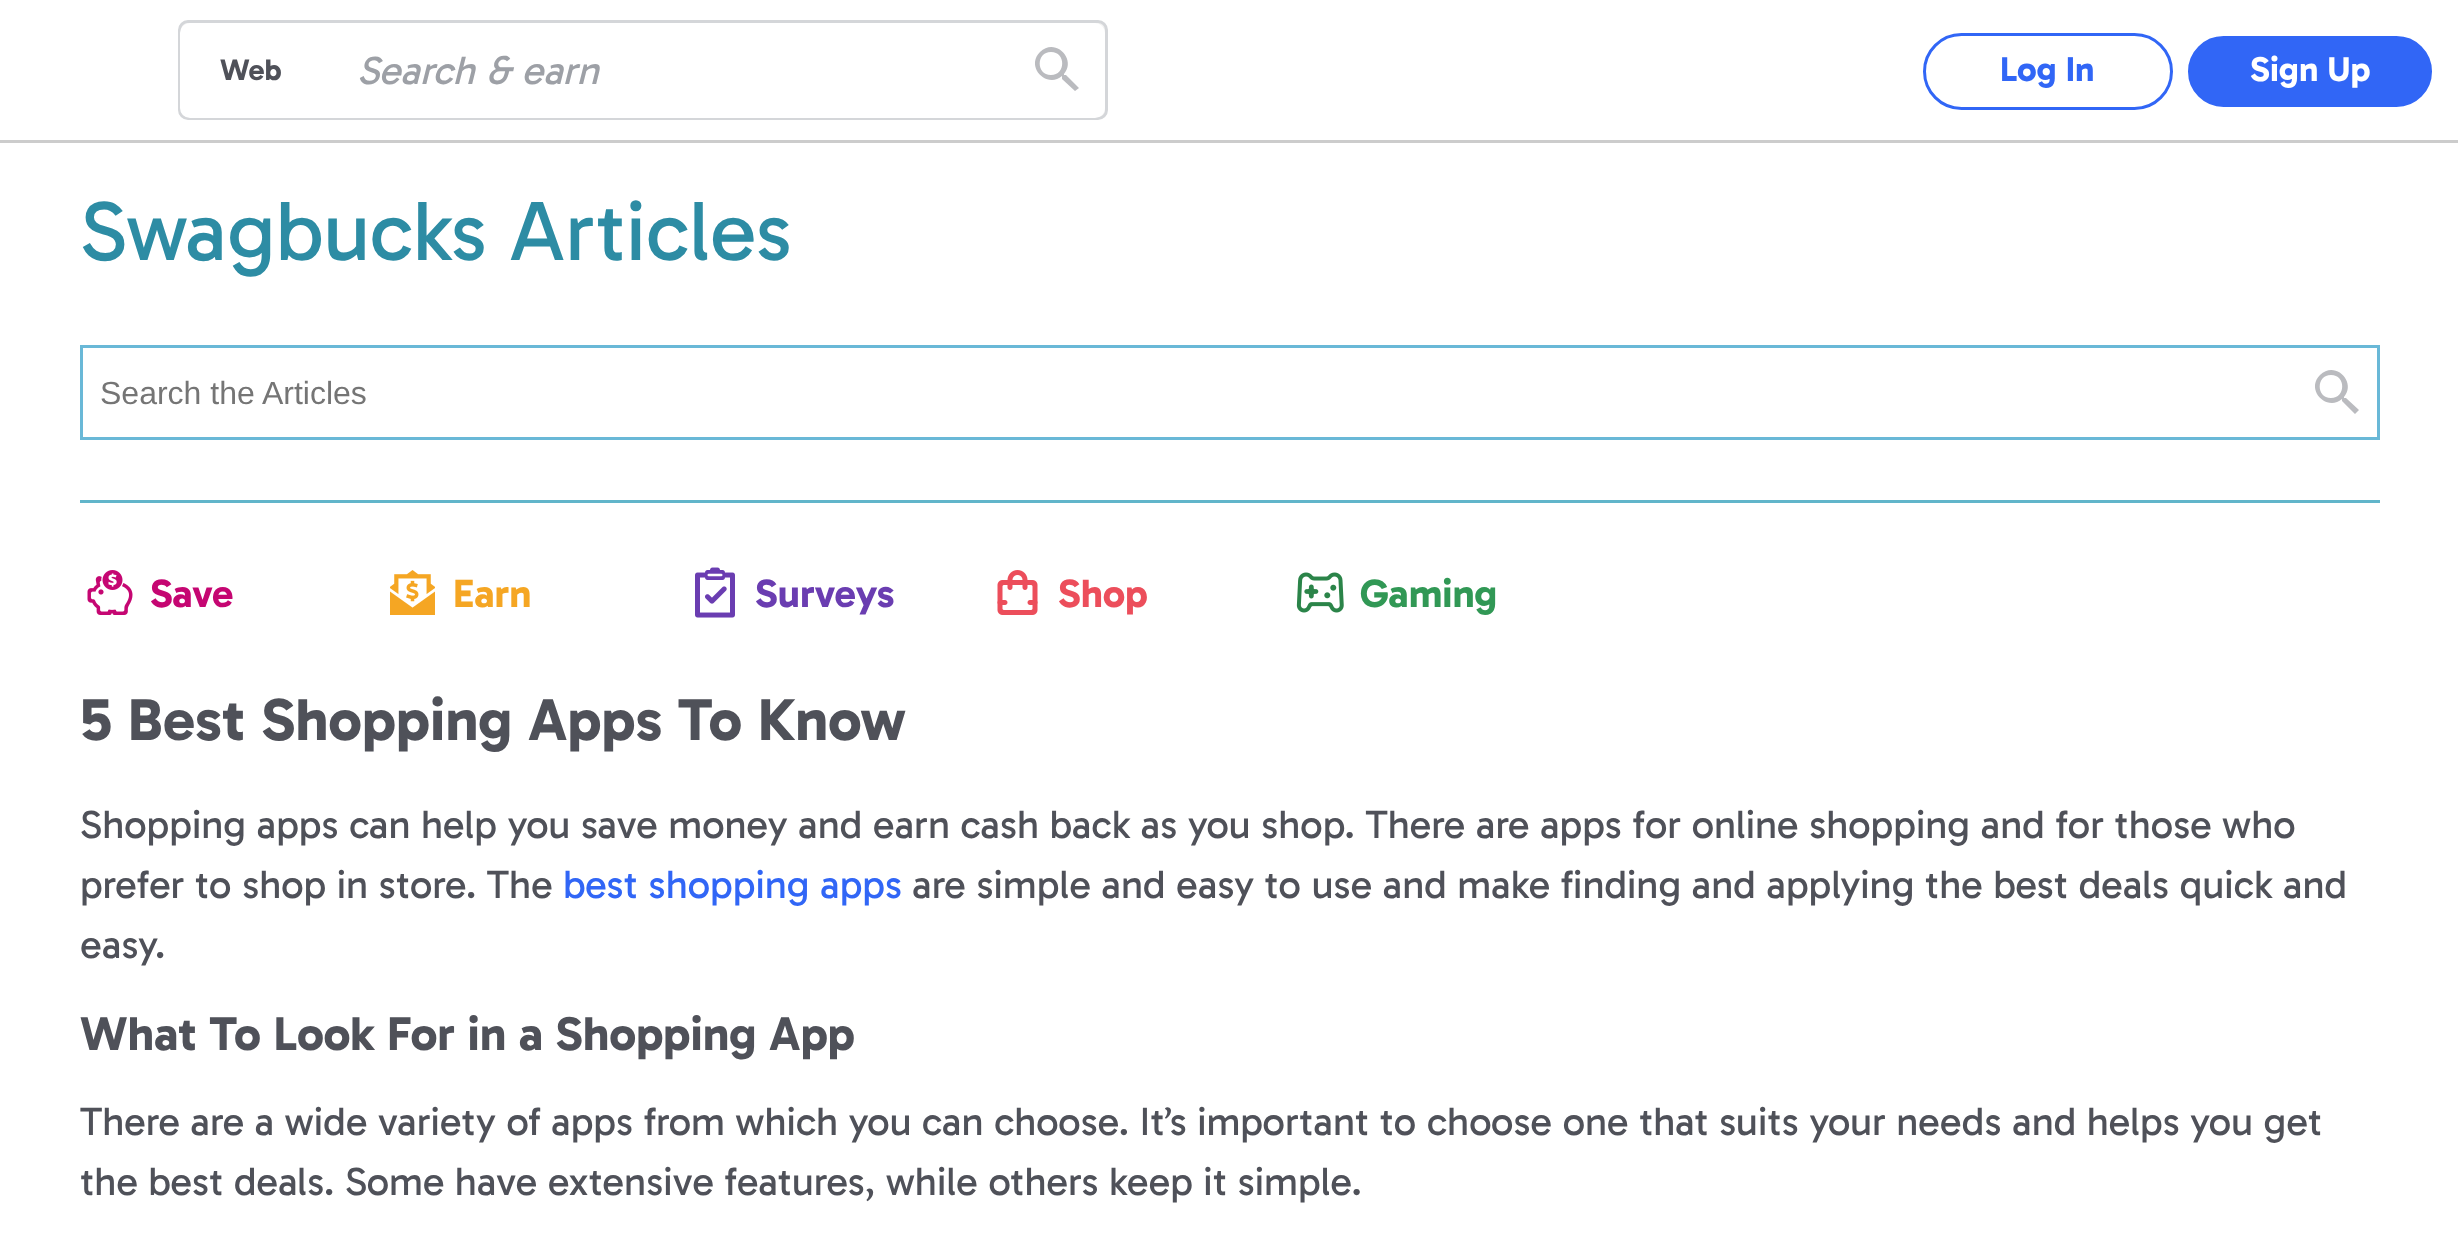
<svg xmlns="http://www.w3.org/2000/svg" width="2458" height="1238">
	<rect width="100%" height="100%" fill="#FFFFFF" />
	<rect x="0" y="140" width="2458" height="3" fill="#CCCCCC" />
	<rect x="179.5" y="21.5" width="927" height="97" rx="8.5" fill="#F2F2F2" stroke="#D4D6D9" stroke-width="3" />
	<rect x="180" y="23" width="925" height="95" rx="10" fill="#FFFFFF" />
	<text x="220" y="80" font-family="Gabarito" font-size="30" font-weight="700" fill="#4F5159">Web</text>
	<text x="357" y="84" font-family="Gabarito" font-size="40" font-style="italic" fill="#9DA0A6">Search &amp; earn</text>
	<path d="M1066 75H1064V74C1077 59 1055 37 1040 52C1025 67 1047 89 1062 76V77V79L1075 91L1079 88ZM1051 75C1036 75 1036 52 1051 52C1066 52 1066 75 1051 75Z" fill="#BABBBF" />
	<rect x="1924.5" y="34.5" width="247" height="74" rx="37" fill="none" stroke="#3166F6" stroke-width="3" />
	<text x="2000" y="81" font-family="Gabarito" font-size="35" font-weight="700" fill="#3166F6">Log In</text>
	<rect x="2186.5" y="34.5" width="247" height="74" rx="37" fill="#3166F6" stroke="#FFFFFF" stroke-width="3" />
	<text x="2250" y="81" font-family="Gabarito" font-size="35" font-weight="700" fill="#FFFFFF">Sign Up</text>
	<text x="80" y="260" font-family="Gabarito" font-size="85" fill="#2D8CA4">Swagbucks Articles</text>
	<rect x="81.5" y="346.5" width="2297" height="92" fill="none" stroke="#69B8D7" stroke-width="3" />
	<text x="100" y="404" font-family="Liberation Sans" font-size="32" fill="#757575">Search the Articles</text>
	<path d="M2346 398H2344V397C2357 382 2335 360 2320 375C2305 390 2327 412 2342 399V401L2355 414L2359 410ZM2331 398C2316 398 2316 375 2331 375C2346 375 2346 398 2331 398Z" fill="#BABBBF" />
	<rect x="80" y="500" width="2300" height="3" fill="#61B5CA" />
	<image x="87" y="570" width="46" height="45" href="assets/img1.png" />
	<text x="150" y="607" font-family="Gabarito" font-size="40" font-weight="700" fill="#C50672">Save</text>
	<image x="390" y="570" width="45" height="45" href="assets/img2.png" />
	<text x="453" y="607" font-family="Gabarito" font-size="40" font-weight="700" fill="#F5A623">Earn</text>
	<image x="695" y="567" width="40" height="51" href="assets/img3.png" />
	<text x="755" y="607" font-family="Gabarito" font-size="40" font-weight="700" fill="#6A3DB1">Surveys</text>
	<image x="997" y="570" width="41" height="45" href="assets/img4.png" />
	<text x="1058" y="607" font-family="Gabarito" font-size="40" font-weight="700" fill="#EC4E5B">Shop</text>
	<image x="1296" y="572" width="48" height="41" href="assets/img5.png" />
	<text x="1360" y="607" font-family="Gabarito" font-size="40" font-weight="700" fill="#319855">Gaming</text>
	<text x="80" y="740" font-family="Gabarito" font-size="60" font-weight="700" fill="#4F5159">5 Best Shopping Apps To Know</text>
	<g font-family="Gabarito" font-size="40" fill="#4F5159">
		<text x="80" y="838">Shopping apps can help you save money and earn cash back as you shop. There are apps for online shopping and for those who</text>
		<text x="80" y="898">prefer to shop in store. The</text>
	</g>
	<text x="563" y="898" font-family="Gabarito" font-size="40" fill="#3166F6">best shopping apps</text>
	<g font-family="Gabarito" font-size="40" fill="#4F5159">
		<text x="912" y="898">are simple and easy to use and make finding and applying the best deals quick and</text>
		<text x="80" y="958">easy.</text>
	</g>
	<text x="80" y="1050" font-family="Gabarito" font-size="48" font-weight="700" fill="#4F5159">What To Look For in a Shopping App</text>
	<g font-family="Gabarito" font-size="40" fill="#4F5159">
		<text x="80" y="1135">There are a wide variety of apps from which you can choose. It’s important to choose one that suits your needs and helps you get</text>
		<text x="80" y="1195">the best deals. Some have extensive features, while others keep it simple.</text>
	</g>
</svg>
